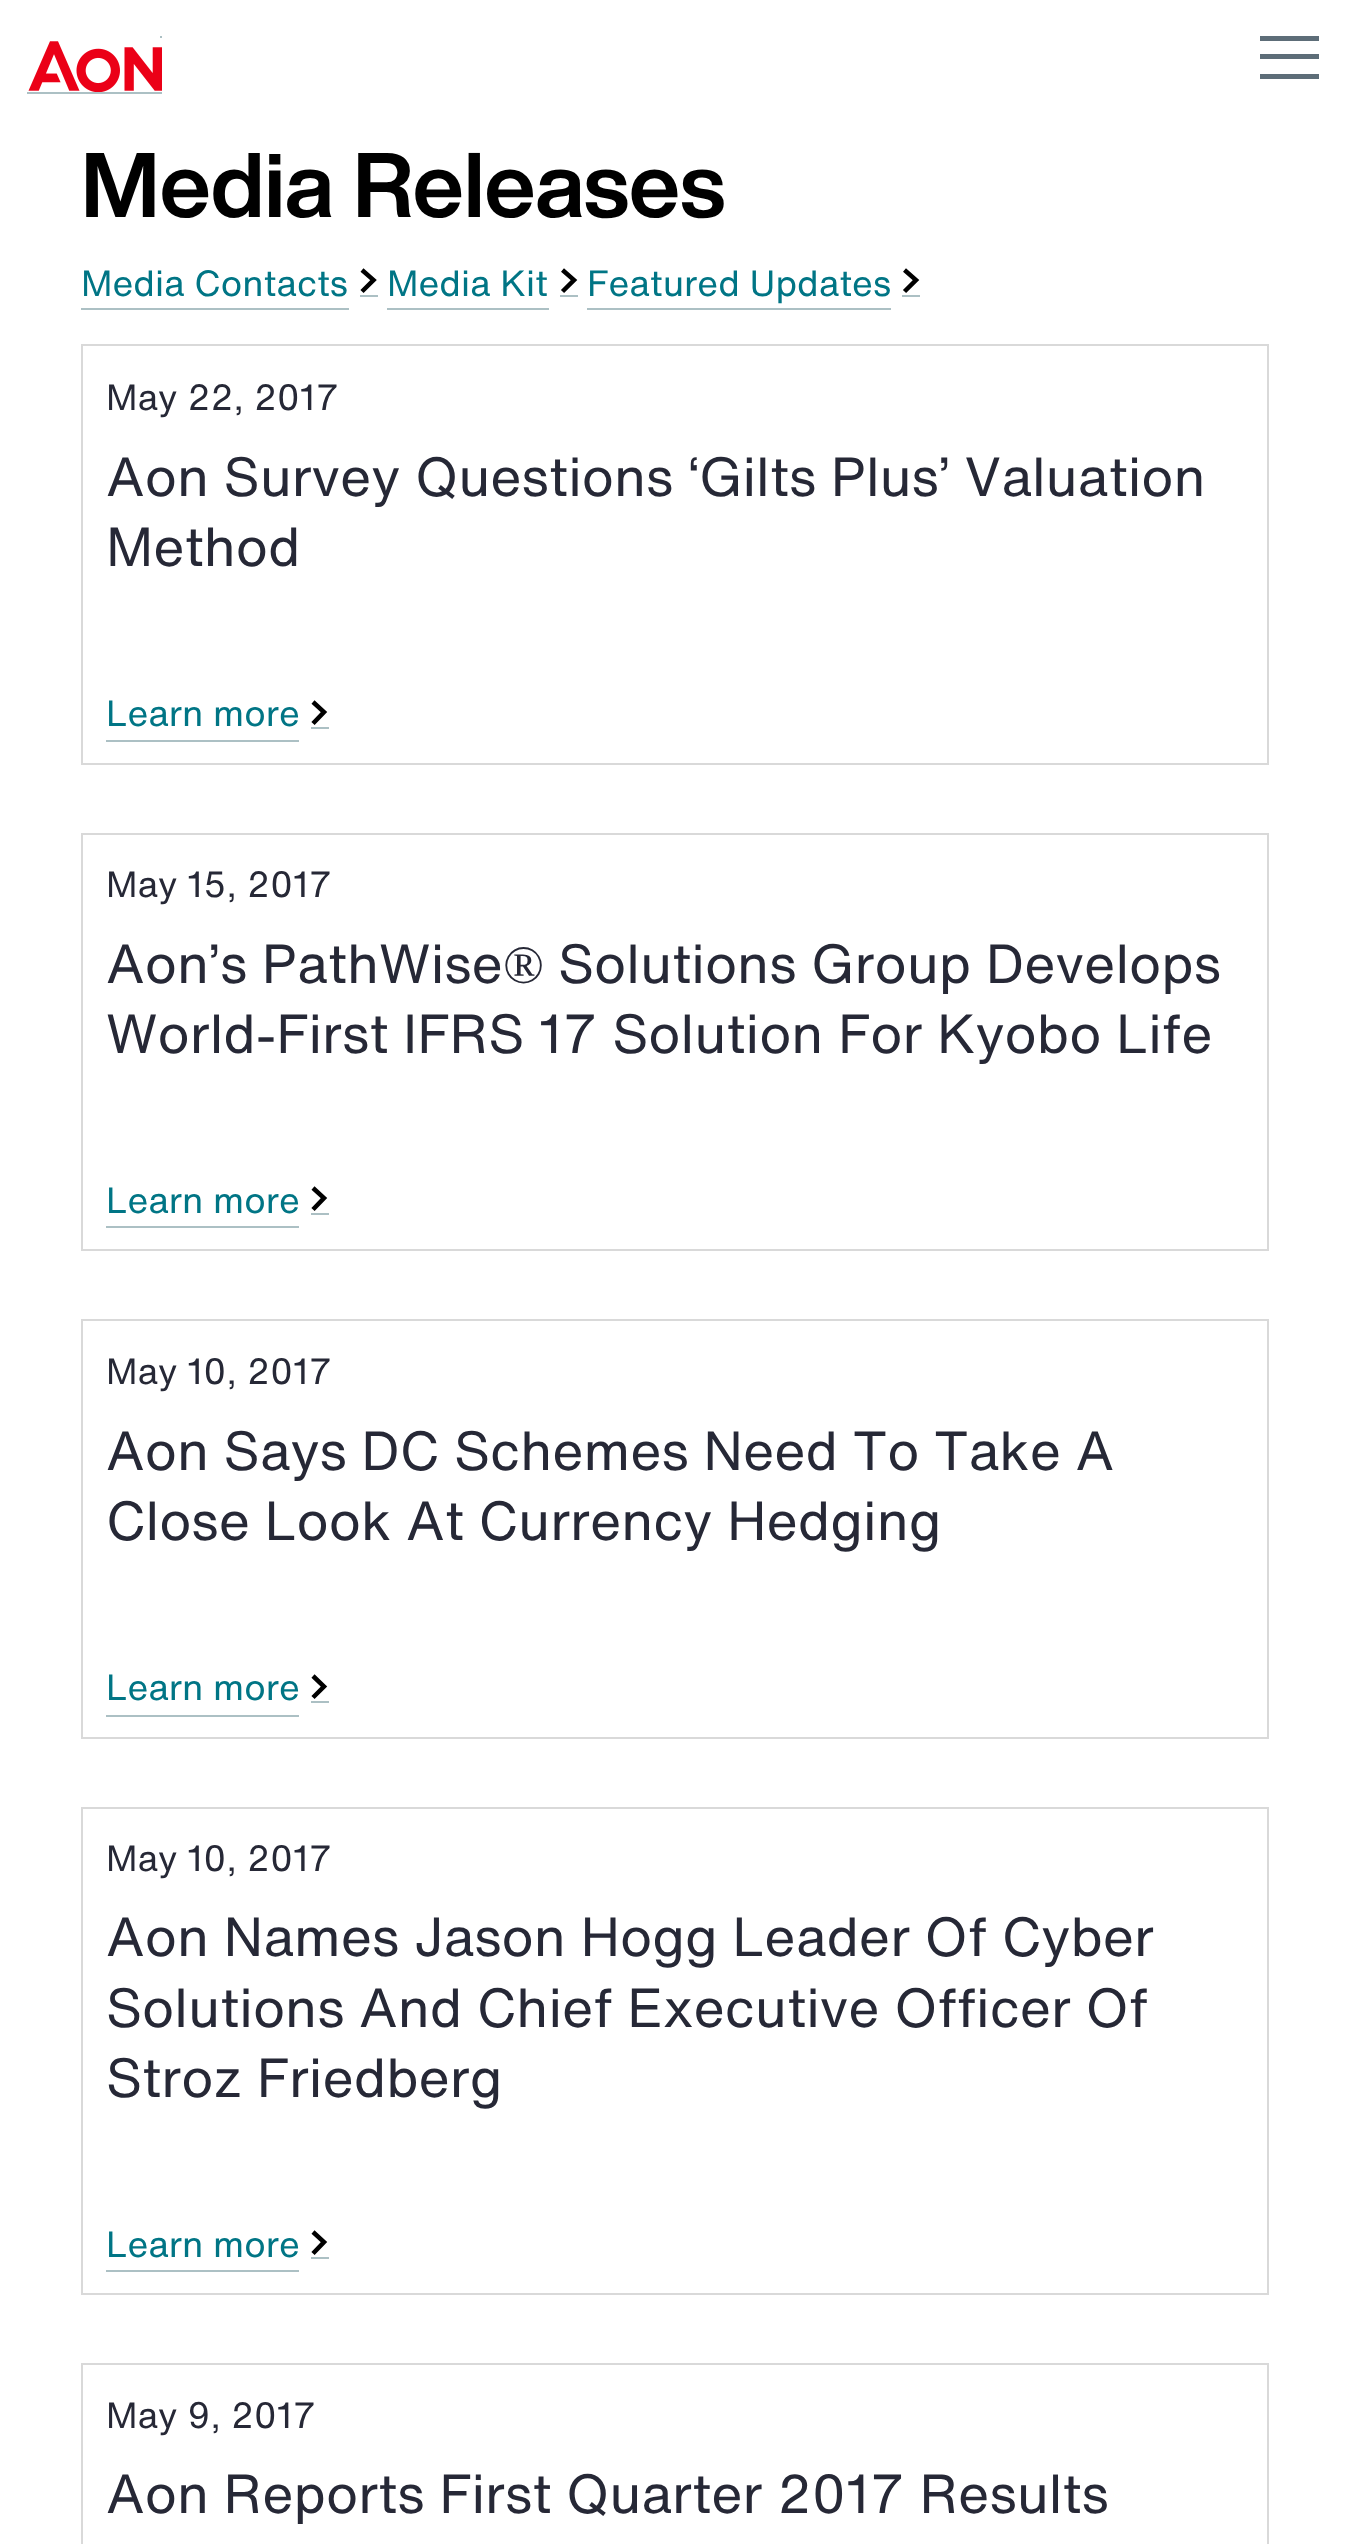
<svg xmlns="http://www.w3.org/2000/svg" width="1348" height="2544">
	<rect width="100%" height="100%" fill="#FFFFFF" />
	<rect x="160" y="36" width="2" height="2" fill="#ACC0C4" />
	<image x="28" y="41" width="134" height="51" href="assets/img1.png" />
	<rect x="27" y="92" width="135" height="2" fill="#ACC0C4" />
	<rect x="1260" y="36" width="59" height="5" fill="#5D6D78" />
	<rect x="1260" y="54" width="59" height="5" fill="#5D6D78" />
	<rect x="1260" y="74" width="59" height="5" fill="#5D6D78" />
	<text x="81" y="217" font-family="'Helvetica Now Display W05'" font-size="90" font-weight="700" fill="#000000">Media Releases</text>
	<rect x="81" y="308" width="268" height="2" fill="#ACC0C4" />
	<rect x="360" y="295" width="18" height="2" fill="#ACC0C4" />
	<text x="81" y="296" font-family="'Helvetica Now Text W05'" font-size="36" fill="#007585">Media Contacts</text>
	<path d="M362 270L373.5 280L362 291.5" fill="none" stroke="#000000" stroke-width="4.5" />
	<rect x="387" y="308" width="162" height="2" fill="#ACC0C4" />
	<rect x="560" y="295" width="18" height="2" fill="#ACC0C4" />
	<text x="387" y="296" font-family="'Helvetica Now Text W05'" font-size="36" fill="#007585">Media Kit</text>
	<path d="M562.5 270L574 280L562.5 291.5" fill="none" stroke="#000000" stroke-width="4.5" />
	<rect x="587" y="308" width="304" height="2" fill="#ACC0C4" />
	<rect x="902" y="295" width="18" height="2" fill="#ACC0C4" />
	<text x="587" y="296" font-family="'Helvetica Now Text W05'" font-size="36" fill="#007585">Featured Updates</text>
	<path d="M904.5 270L916 280L904.5 291.5" fill="none" stroke="#000000" stroke-width="4.5" />
	<rect x="82" y="345" width="1186" height="419" fill="none" stroke="#D9D9D9" stroke-width="2" />
	<text x="106" y="410" font-family="'Helvetica Now Text W05'" font-size="36" fill="#262836">May 22, 2017</text>
	<g font-family="'Helvetica Now Text W05'" font-size="54" fill="#262836">
		<text x="106" y="496">Aon Survey Questions ‘Gilts Plus’ Valuation</text>
		<text x="106" y="566">Method</text>
	</g>
	<rect x="106" y="740" width="193" height="2" fill="#ACC0C4" />
	<rect x="311" y="727" width="18" height="2" fill="#ACC0C4" />
	<text x="106" y="726" font-family="'Helvetica Now Text W05'" font-size="36" fill="#007585">Learn more</text>
	<path d="M313 702L324 712L313 723.5" fill="none" stroke="#000000" stroke-width="4.5" />
	<rect x="82" y="834" width="1186" height="416" fill="none" stroke="#D9D9D9" stroke-width="2" />
	<text x="106" y="897" font-family="'Helvetica Now Text W05'" font-size="36" fill="#262836">May 15, 2017</text>
	<text x="106" y="983" font-family="'Helvetica Now Text W05'" font-size="54" fill="#262836">Aon’s PathWise</text>
	<text x="503" y="983" font-family="Liberation Serif" font-size="54" fill="#262836">®</text>
	<g font-family="'Helvetica Now Text W05'" font-size="54" fill="#262836">
		<text x="558" y="983">Solutions Group Develops</text>
		<text x="106" y="1053">World-First IFRS 17 Solution For Kyobo Life</text>
	</g>
	<rect x="106" y="1226" width="193" height="2" fill="#ACC0C4" />
	<rect x="311" y="1213" width="18" height="2" fill="#ACC0C4" />
	<text x="106" y="1213" font-family="'Helvetica Now Text W05'" font-size="36" fill="#007585">Learn more</text>
	<path d="M313 1188L324 1198L313 1209.5" fill="none" stroke="#000000" stroke-width="4.5" />
	<rect x="82" y="1320" width="1186" height="418" fill="none" stroke="#D9D9D9" stroke-width="2" />
	<text x="106" y="1384" font-family="'Helvetica Now Text W05'" font-size="36" fill="#262836">May 10, 2017</text>
	<g font-family="'Helvetica Now Text W05'" font-size="54" fill="#262836">
		<text x="106" y="1470">Aon Says DC Schemes Need To Take A</text>
		<text x="106" y="1540">Close Look At Currency Hedging</text>
	</g>
	<rect x="106" y="1715" width="193" height="2" fill="#ACC0C4" />
	<rect x="311" y="1701" width="18" height="2" fill="#ACC0C4" />
	<text x="106" y="1700" font-family="'Helvetica Now Text W05'" font-size="36" fill="#007585">Learn more</text>
	<path d="M313 1676L324 1686.5L313 1697.5" fill="none" stroke="#000000" stroke-width="4.5" />
	<rect x="82" y="1808" width="1186" height="486" fill="none" stroke="#D9D9D9" stroke-width="2" />
	<text x="106" y="1871" font-family="'Helvetica Now Text W05'" font-size="36" fill="#262836">May 10, 2017</text>
	<g font-family="'Helvetica Now Text W05'" font-size="54" fill="#262836">
		<text x="106" y="1956">Aon Names Jason Hogg Leader Of Cyber</text>
		<text x="106" y="2027">Solutions And Chief Executive Officer Of</text>
		<text x="106" y="2097">Stroz Friedberg</text>
	</g>
	<rect x="106" y="2270" width="193" height="2" fill="#ACC0C4" />
	<rect x="311" y="2257" width="18" height="2" fill="#ACC0C4" />
	<text x="106" y="2257" font-family="'Helvetica Now Text W05'" font-size="36" fill="#007585">Learn more</text>
	<path d="M313 2232L324 2242L313 2253.5" fill="none" stroke="#000000" stroke-width="4.5" />
	<rect x="82" y="2364" width="1186" height="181" fill="none" stroke="#D9D9D9" stroke-width="2" />
	<text x="106" y="2428" font-family="'Helvetica Now Text W05'" font-size="36" fill="#262836">May 9, 2017</text>
	<text x="106" y="2513" font-family="'Helvetica Now Text W05'" font-size="54" fill="#262836">Aon Reports First Quarter 2017 Results</text>
</svg>
